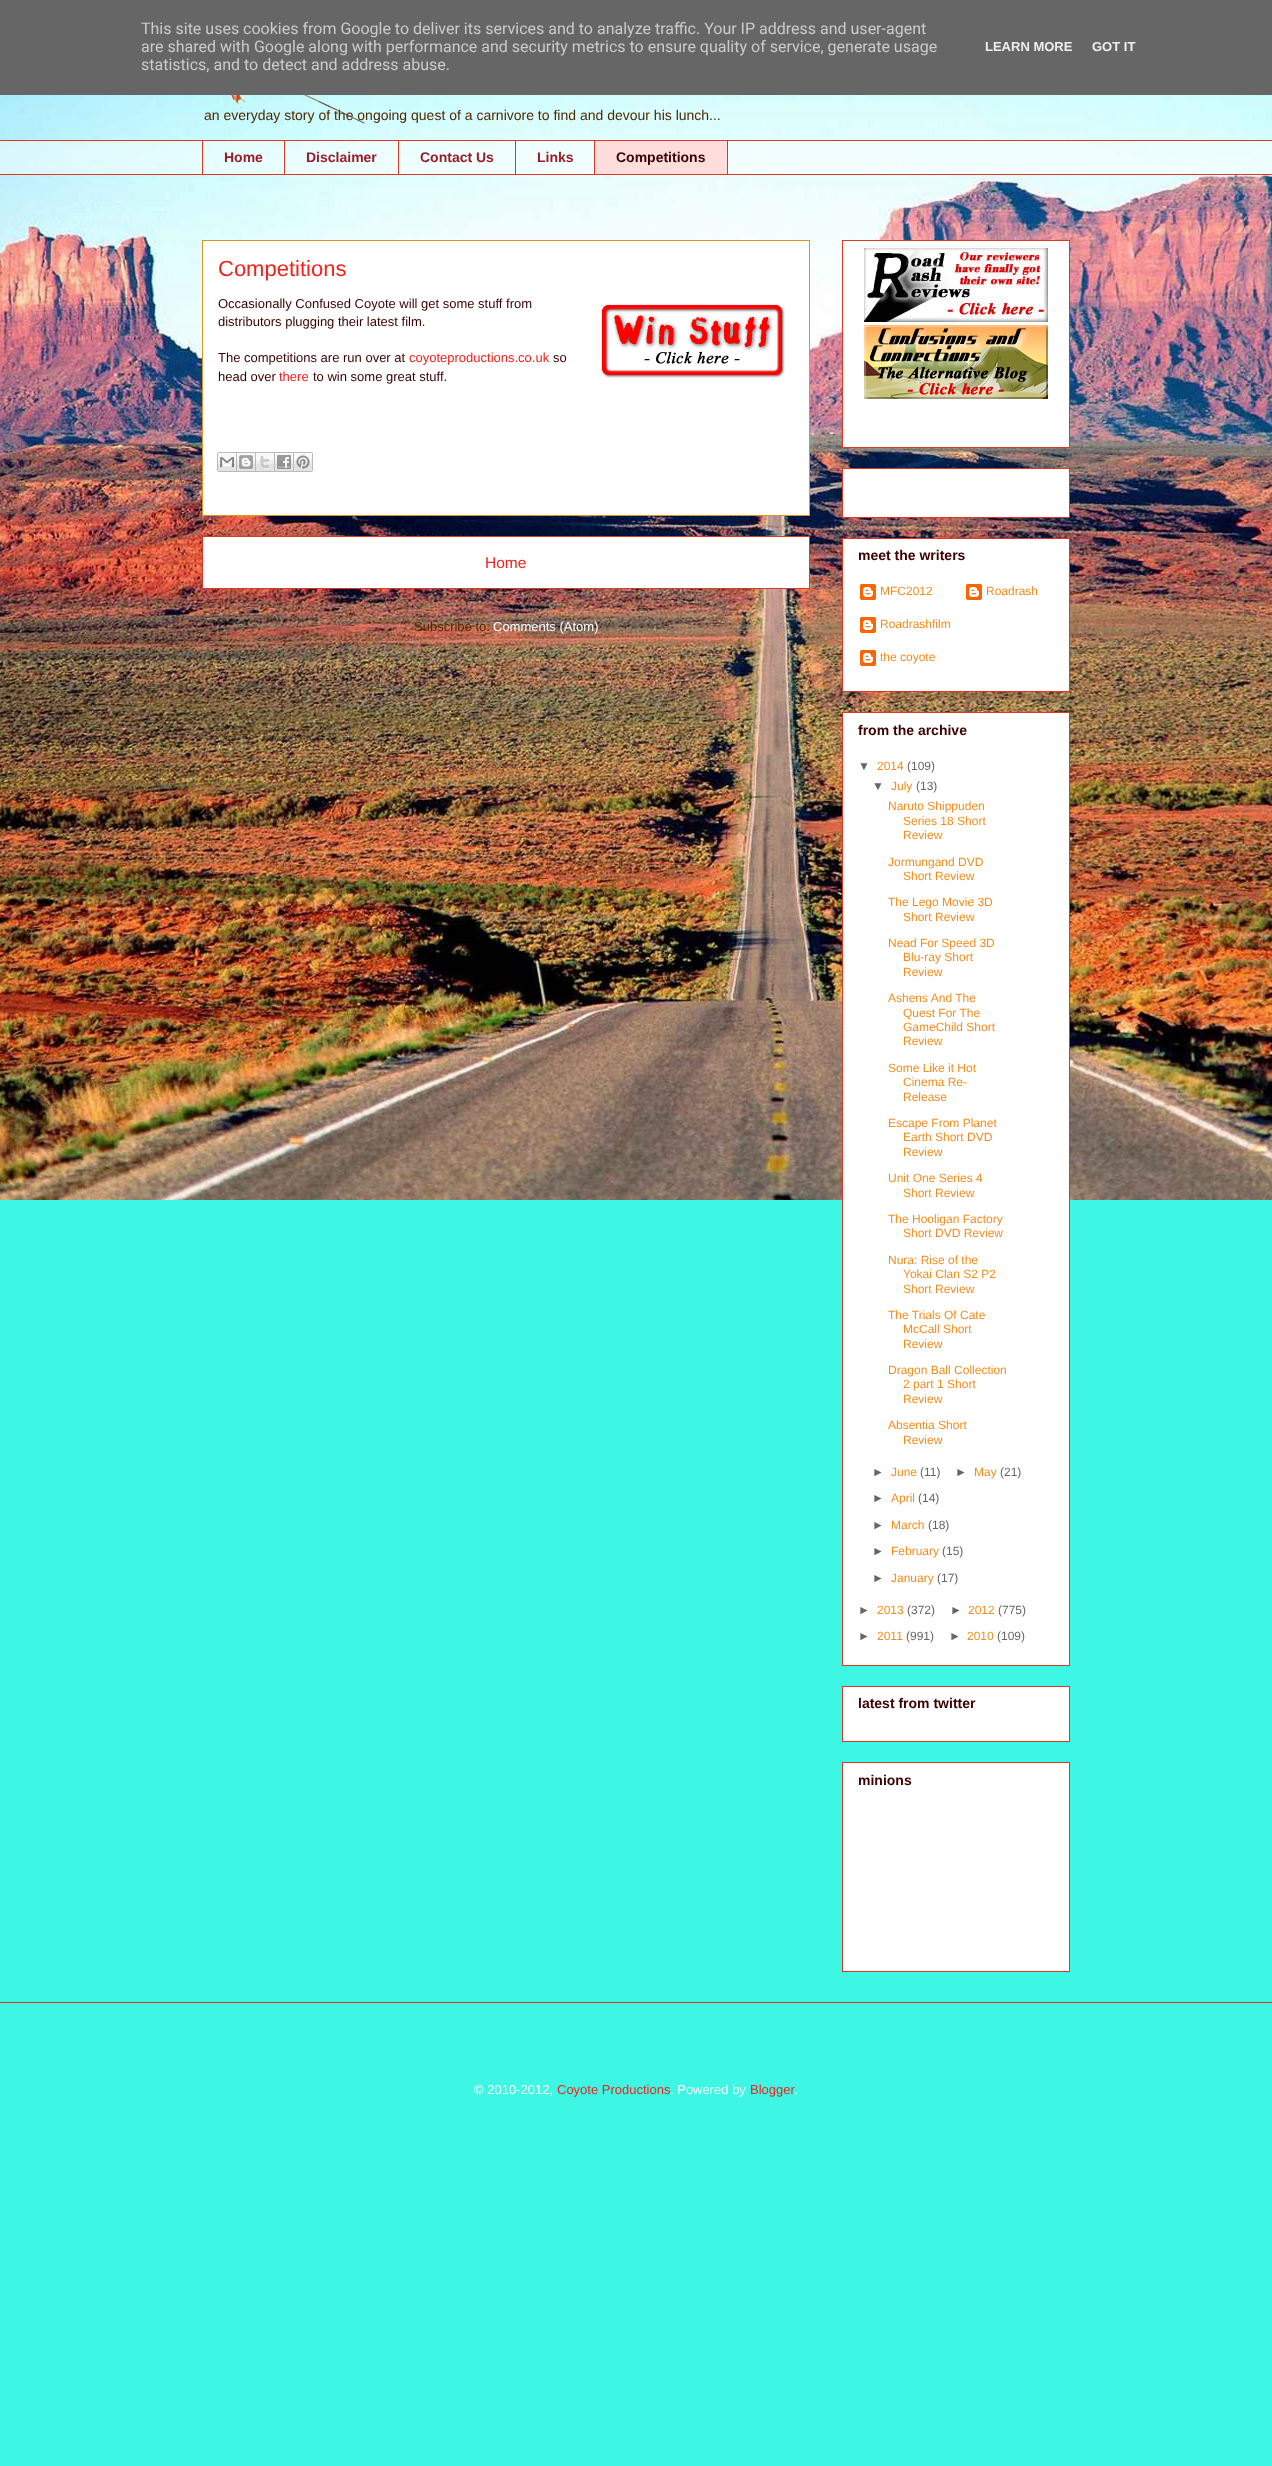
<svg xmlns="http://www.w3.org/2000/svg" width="1272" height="2466">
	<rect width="100%" height="100%" fill="#3DF7E4" />
	<image x="0" y="95" width="1272" height="1105" href="assets/img1.png" />
	<rect x="0" y="0" width="1272" height="95" fill="#666666" />
	<g font-family="Roboto" font-size="16" fill="#CCCCCC">
		<text x="141" y="34">This site uses cookies from Google to deliver its services and to analyze traffic. Your IP address and user-agent</text>
		<text x="141" y="52">are shared with Google along with performance and security metrics to ensure quality of service, generate usage</text>
		<text x="141" y="70">statistics, and to detect and address abuse.</text>
	</g>
	<g font-family="Liberation Sans" font-size="13" font-weight="700" fill="#EEEEEE">
		<text x="985" y="51">LEARN MORE</text>
		<text x="1092" y="51">GOT IT</text>
	</g>
	<image x="230" y="95" width="136" height="30" href="assets/img2.png" />
	<text x="204" y="120" font-family="Liberation Sans" font-size="14" fill="#4E2800">an everyday story of the ongoing quest of a carnivore to find and devour his lunch...</text>
	<rect x="0" y="141" width="1272" height="33" fill="#FFFFFF" fill-opacity="0.49" />
	<rect x="0" y="140" width="1272" height="1" fill="#DC3822" />
	<rect x="202" y="140" width="1" height="35" fill="#DC3822" />
	<text x="224" y="162" font-family="Liberation Sans" font-size="14" font-weight="700" fill="#991D26">Home</text>
	<rect x="284" y="140" width="1" height="35" fill="#DC3822" />
	<text x="306" y="162" font-family="Liberation Sans" font-size="14" font-weight="700" fill="#991D26">Disclaimer</text>
	<rect x="398" y="140" width="1" height="35" fill="#DC3822" />
	<text x="420" y="162" font-family="Liberation Sans" font-size="14" font-weight="700" fill="#991D26">Contact Us</text>
	<rect x="515" y="140" width="1" height="35" fill="#DC3822" />
	<text x="537" y="162" font-family="Liberation Sans" font-size="14" font-weight="700" fill="#991D26">Links</text>
	<rect x="594.5" y="140.5" width="133" height="34" fill="#FFDDDD" stroke="#DC3822" />
	<text x="616" y="162" font-family="Liberation Sans" font-size="14" font-weight="700" fill="#3C0100">Competitions</text>
	<rect x="0" y="174" width="1272" height="1" fill="#DC3822" />
	<rect x="202.5" y="240.5" width="607" height="275" fill="#FFFFFF" stroke="#DC9522" />
	<text x="218" y="276" font-family="Liberation Sans" font-size="22" fill="#F3211C">Competitions</text>
	<text x="218" y="308" font-family="Liberation Sans" font-size="13" fill="#3C0100">Occasionally Confused Coyote will get some stuff from</text>
	<image x="601" y="304" width="184" height="74" href="assets/img3.png" />
	<g font-family="Liberation Sans" font-size="13" fill="#3C0100">
		<text x="218" y="326">distributors plugging their latest film.</text>
		<text x="218" y="362">The competitions are run over at</text>
	</g>
	<text x="409" y="362" font-family="Liberation Sans" font-size="13" fill="#F3211C">coyoteproductions.co.uk</text>
	<g font-family="Liberation Sans" font-size="13" fill="#3C0100">
		<text x="553" y="362">so</text>
		<text x="218" y="381">head over</text>
	</g>
	<text x="279" y="381" font-family="Liberation Sans" font-size="13" fill="#F3211C">there</text>
	<text x="313" y="381" font-family="Liberation Sans" font-size="13" fill="#3C0100">to win some great stuff.</text>
	<image x="217" y="452" width="20" height="20" href="assets/img4.png" />
	<image x="237" y="452" width="19" height="20" href="assets/img5.png" />
	<image x="256" y="452" width="19" height="20" href="assets/img6.png" />
	<image x="275" y="452" width="19" height="20" href="assets/img7.png" />
	<image x="294" y="452" width="19" height="20" href="assets/img8.png" />
	<rect x="202.5" y="536.5" width="607" height="52" fill="#FFFFFF" stroke="#DC3822" />
	<text x="485" y="568" font-family="Liberation Sans" font-size="15.5" fill="#F3211C">Home</text>
	<text x="414" y="631" font-family="Liberation Sans" font-size="13" fill="#4E2800">Subscribe to:</text>
	<text x="493" y="631" font-family="Liberation Sans" font-size="13" fill="#FFFFFF">Comments (Atom)</text>
	<rect x="842.5" y="240.5" width="227" height="207" fill="#FFFFFF" stroke="#DC3822" />
	<image x="864" y="248" width="184" height="74" href="assets/img9.png" />
	<image x="864" y="325" width="184" height="74" href="assets/img10.png" />
	<rect x="842.5" y="468.5" width="227" height="49" fill="#FFFFFF" stroke="#DC3822" />
	<rect x="842.5" y="538.5" width="227" height="153" fill="#FFFFFF" stroke="#DC3822" />
	<text x="858" y="560" font-family="Liberation Sans" font-size="14" font-weight="700" fill="#3C0100">meet the writers</text>
	<image x="860" y="584" width="16" height="16" href="assets/img11.png" />
	<text x="880" y="595" font-family="Liberation Sans" font-size="12" fill="#F48D1D">MFC2012</text>
	<image x="966" y="584" width="16" height="16" href="assets/img11.png" />
	<text x="986" y="595" font-family="Liberation Sans" font-size="12" fill="#F48D1D">Roadrash</text>
	<image x="860" y="617" width="16" height="16" href="assets/img11.png" />
	<text x="880" y="628" font-family="Liberation Sans" font-size="12" fill="#F48D1D">Roadrashfilm</text>
	<image x="860" y="650" width="16" height="16" href="assets/img11.png" />
	<text x="880" y="661" font-family="Liberation Sans" font-size="12" fill="#F48D1D">the coyote</text>
	<rect x="842.5" y="712.5" width="227" height="953" fill="#FFFFFF" stroke="#DC3822" />
	<text x="858" y="735" font-family="Liberation Sans" font-size="14" font-weight="700" fill="#3C0100">from the archive</text>
	<text x="858" y="770" font-family="Liberation Sans" font-size="12" fill="#666666">▼</text>
	<text x="877" y="770" font-family="Liberation Sans" font-size="12" fill="#F48D1D">2014</text>
	<g font-family="Liberation Sans" font-size="12" fill="#666666">
		<text x="907" y="770">(109)</text>
		<text x="872" y="790">▼</text>
	</g>
	<text x="891" y="790" font-family="Liberation Sans" font-size="12" fill="#F48D1D">July</text>
	<text x="916" y="790" font-family="Liberation Sans" font-size="12" fill="#666666">(13)</text>
	<g font-family="Liberation Sans" font-size="12" fill="#F48D1D">
		<text x="888" y="810">Naruto Shippuden</text>
		<text x="903" y="825">Series 18 Short</text>
		<text x="903" y="839">Review</text>
		<text x="888" y="866">Jormungand DVD</text>
		<text x="903" y="880">Short Review</text>
		<text x="888" y="906">The Lego Movie 3D</text>
		<text x="903" y="921">Short Review</text>
		<text x="888" y="947">Nead For Speed 3D</text>
		<text x="903" y="961">Blu-ray Short</text>
		<text x="903" y="976">Review</text>
		<text x="888" y="1002">Ashens And The</text>
		<text x="903" y="1017">Quest For The</text>
		<text x="903" y="1031">GameChild Short</text>
		<text x="903" y="1045">Review</text>
		<text x="888" y="1072">Some Like it Hot</text>
		<text x="903" y="1086">Cinema Re-</text>
		<text x="903" y="1101">Release</text>
		<text x="888" y="1127">Escape From Planet</text>
		<text x="903" y="1141">Earth Short DVD</text>
		<text x="903" y="1156">Review</text>
		<text x="888" y="1182">Unit One Series 4</text>
		<text x="903" y="1197">Short Review</text>
		<text x="888" y="1223">The Hooligan Factory</text>
		<text x="903" y="1237">Short DVD Review</text>
		<text x="888" y="1264">Nura: Rise of the</text>
		<text x="903" y="1278">Yokai Clan S2 P2</text>
		<text x="903" y="1293">Short Review</text>
		<text x="888" y="1319">The Trials Of Cate</text>
		<text x="903" y="1333">McCall Short</text>
		<text x="903" y="1348">Review</text>
		<text x="888" y="1374">Dragon Ball Collection</text>
		<text x="903" y="1388">2 part 1 Short</text>
		<text x="903" y="1403">Review</text>
		<text x="888" y="1429">Absentia Short</text>
		<text x="903" y="1444">Review</text>
	</g>
	<text x="872" y="1476" font-family="Liberation Sans" font-size="12" fill="#666666">►</text>
	<text x="891" y="1476" font-family="Liberation Sans" font-size="12" fill="#F48D1D">June</text>
	<g font-family="Liberation Sans" font-size="12" fill="#666666">
		<text x="920" y="1476">(11)</text>
		<text x="955" y="1476">►</text>
	</g>
	<text x="974" y="1476" font-family="Liberation Sans" font-size="12" fill="#F48D1D">May</text>
	<g font-family="Liberation Sans" font-size="12" fill="#666666">
		<text x="1000" y="1476">(21)</text>
		<text x="872" y="1502">►</text>
	</g>
	<text x="891" y="1502" font-family="Liberation Sans" font-size="12" fill="#F48D1D">April</text>
	<g font-family="Liberation Sans" font-size="12" fill="#666666">
		<text x="918" y="1502">(14)</text>
		<text x="872" y="1529">►</text>
	</g>
	<text x="891" y="1529" font-family="Liberation Sans" font-size="12" fill="#F48D1D">March</text>
	<g font-family="Liberation Sans" font-size="12" fill="#666666">
		<text x="928" y="1529">(18)</text>
		<text x="872" y="1555">►</text>
	</g>
	<text x="891" y="1555" font-family="Liberation Sans" font-size="12" fill="#F48D1D">February</text>
	<g font-family="Liberation Sans" font-size="12" fill="#666666">
		<text x="942" y="1555">(15)</text>
		<text x="872" y="1582">►</text>
	</g>
	<text x="891" y="1582" font-family="Liberation Sans" font-size="12" fill="#F48D1D">January</text>
	<g font-family="Liberation Sans" font-size="12" fill="#666666">
		<text x="937" y="1582">(17)</text>
		<text x="858" y="1614">►</text>
	</g>
	<text x="877" y="1614" font-family="Liberation Sans" font-size="12" fill="#F48D1D">2013</text>
	<g font-family="Liberation Sans" font-size="12" fill="#666666">
		<text x="907" y="1614">(372)</text>
		<text x="950" y="1614">►</text>
	</g>
	<text x="968" y="1614" font-family="Liberation Sans" font-size="12" fill="#F48D1D">2012</text>
	<g font-family="Liberation Sans" font-size="12" fill="#666666">
		<text x="998" y="1614">(775)</text>
		<text x="858" y="1640">►</text>
	</g>
	<text x="877" y="1640" font-family="Liberation Sans" font-size="12" fill="#F48D1D">2011</text>
	<g font-family="Liberation Sans" font-size="12" fill="#666666">
		<text x="906" y="1640">(991)</text>
		<text x="949" y="1640">►</text>
	</g>
	<text x="967" y="1640" font-family="Liberation Sans" font-size="12" fill="#F48D1D">2010</text>
	<text x="997" y="1640" font-family="Liberation Sans" font-size="12" fill="#666666">(109)</text>
	<rect x="842.5" y="1686.5" width="227" height="55" fill="#FFFFFF" stroke="#DC3822" />
	<text x="858" y="1708" font-family="Liberation Sans" font-size="14" font-weight="700" fill="#3C0100">latest from twitter</text>
	<rect x="842.5" y="1762.5" width="227" height="209" fill="#FFFFFF" stroke="#DC3822" />
	<text x="858" y="1785" font-family="Liberation Sans" font-size="14" font-weight="700" fill="#3C0100">minions</text>
	<rect x="0" y="2002" width="1272" height="1" fill="#DC3822" />
	<text x="474" y="2094" font-family="Liberation Sans" font-size="13" fill="#FFFFFF">© 2010-2012,</text>
	<text x="557" y="2094" font-family="Liberation Sans" font-size="13" fill="#F3211C">Coyote Productions</text>
	<text x="670" y="2094" font-family="Liberation Sans" font-size="13" fill="#FFFFFF">. Powered by</text>
	<text x="750" y="2094" font-family="Liberation Sans" font-size="13" fill="#F3211C">Blogger</text>
	<text x="794" y="2094" font-family="Liberation Sans" font-size="13" fill="#FFFFFF">.</text>
</svg>
